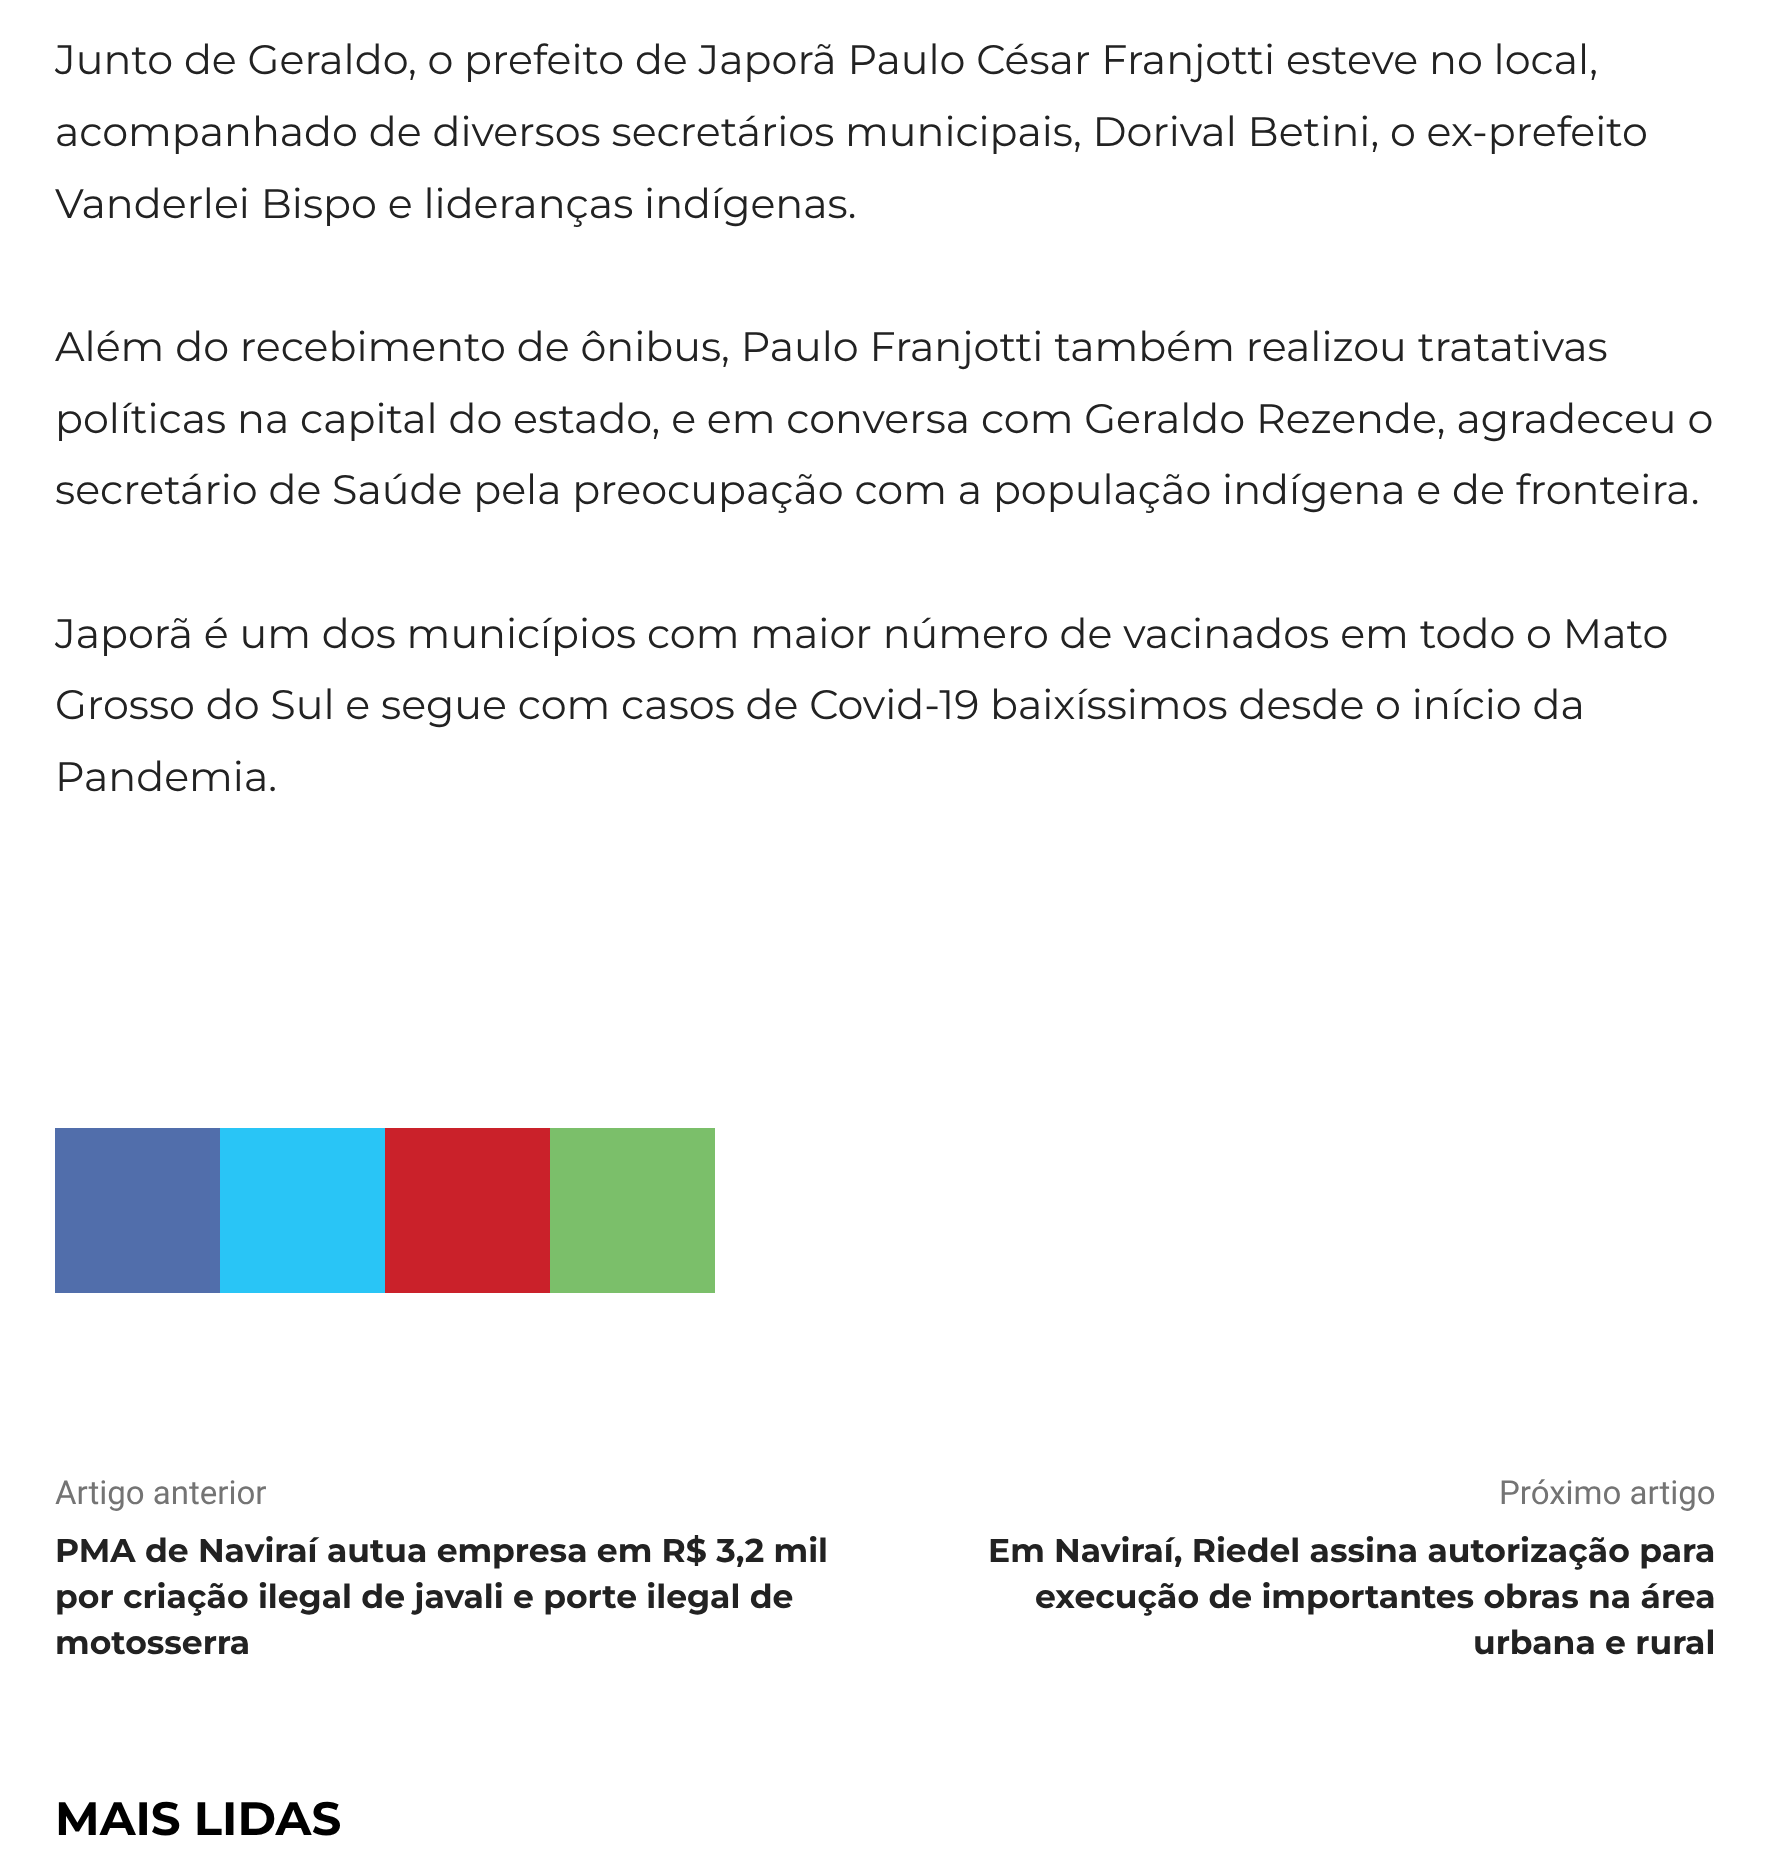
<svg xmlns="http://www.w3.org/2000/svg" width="1770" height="1868">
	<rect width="100%" height="100%" fill="#FFFFFF" />
	<g font-family="Montserrat" font-size="41.25" fill="#222222">
		<text x="55" y="74">Junto de Geraldo, o prefeito de Japorã Paulo César Franjotti esteve no local,</text>
		<text x="55" y="146">acompanhado de diversos secretários municipais, Dorival Betini, o ex-prefeito</text>
		<text x="55" y="218">Vanderlei Bispo e lideranças indígenas.</text>
		<text x="55" y="361">Além do recebimento de ônibus, Paulo Franjotti também realizou tratativas</text>
		<text x="55" y="433">políticas na capital do estado, e em conversa com Geraldo Rezende, agradeceu o</text>
		<text x="55" y="504">secretário de Saúde pela preocupação com a população indígena e de fronteira.</text>
		<text x="55" y="648">Japorã é um dos municípios com maior número de vacinados em todo o Mato</text>
		<text x="55" y="719">Grosso do Sul e segue com casos de Covid-19 baixíssimos desde o início da</text>
		<text x="55" y="791">Pandemia.</text>
	</g>
	<rect x="55" y="1128" width="165" height="165" fill="#516EAB" />
	<rect x="220" y="1128" width="165" height="165" fill="#29C5F6" />
	<rect x="385" y="1128" width="165" height="165" fill="#CA212A" />
	<rect x="550" y="1128" width="165" height="165" fill="#7BBF6A" />
	<text x="55" y="1504" font-family="Roboto" font-size="33" fill="#747474">Artigo anterior</text>
	<g font-family="Montserrat" font-size="33" font-weight="700" fill="#222222">
		<text x="55" y="1562">PMA de Naviraí autua empresa em R$ 3,2 mil</text>
		<text x="55" y="1608">por criação ilegal de javali e porte ilegal de</text>
		<text x="55" y="1654">motosserra</text>
	</g>
	<text x="1499" y="1504" font-family="Roboto" font-size="33" fill="#747474">Próximo artigo</text>
	<g font-family="Montserrat" font-size="33" font-weight="700" fill="#222222">
		<text x="988" y="1562">Em Naviraí, Riedel assina autorização para</text>
		<text x="1035" y="1608">execução de importantes obras na área</text>
		<text x="1473" y="1654">urbana e rural</text>
	</g>
	<text x="55" y="1835" font-family="Montserrat" font-size="46.75" font-weight="700" fill="#000000">MAIS LIDAS</text>
</svg>
